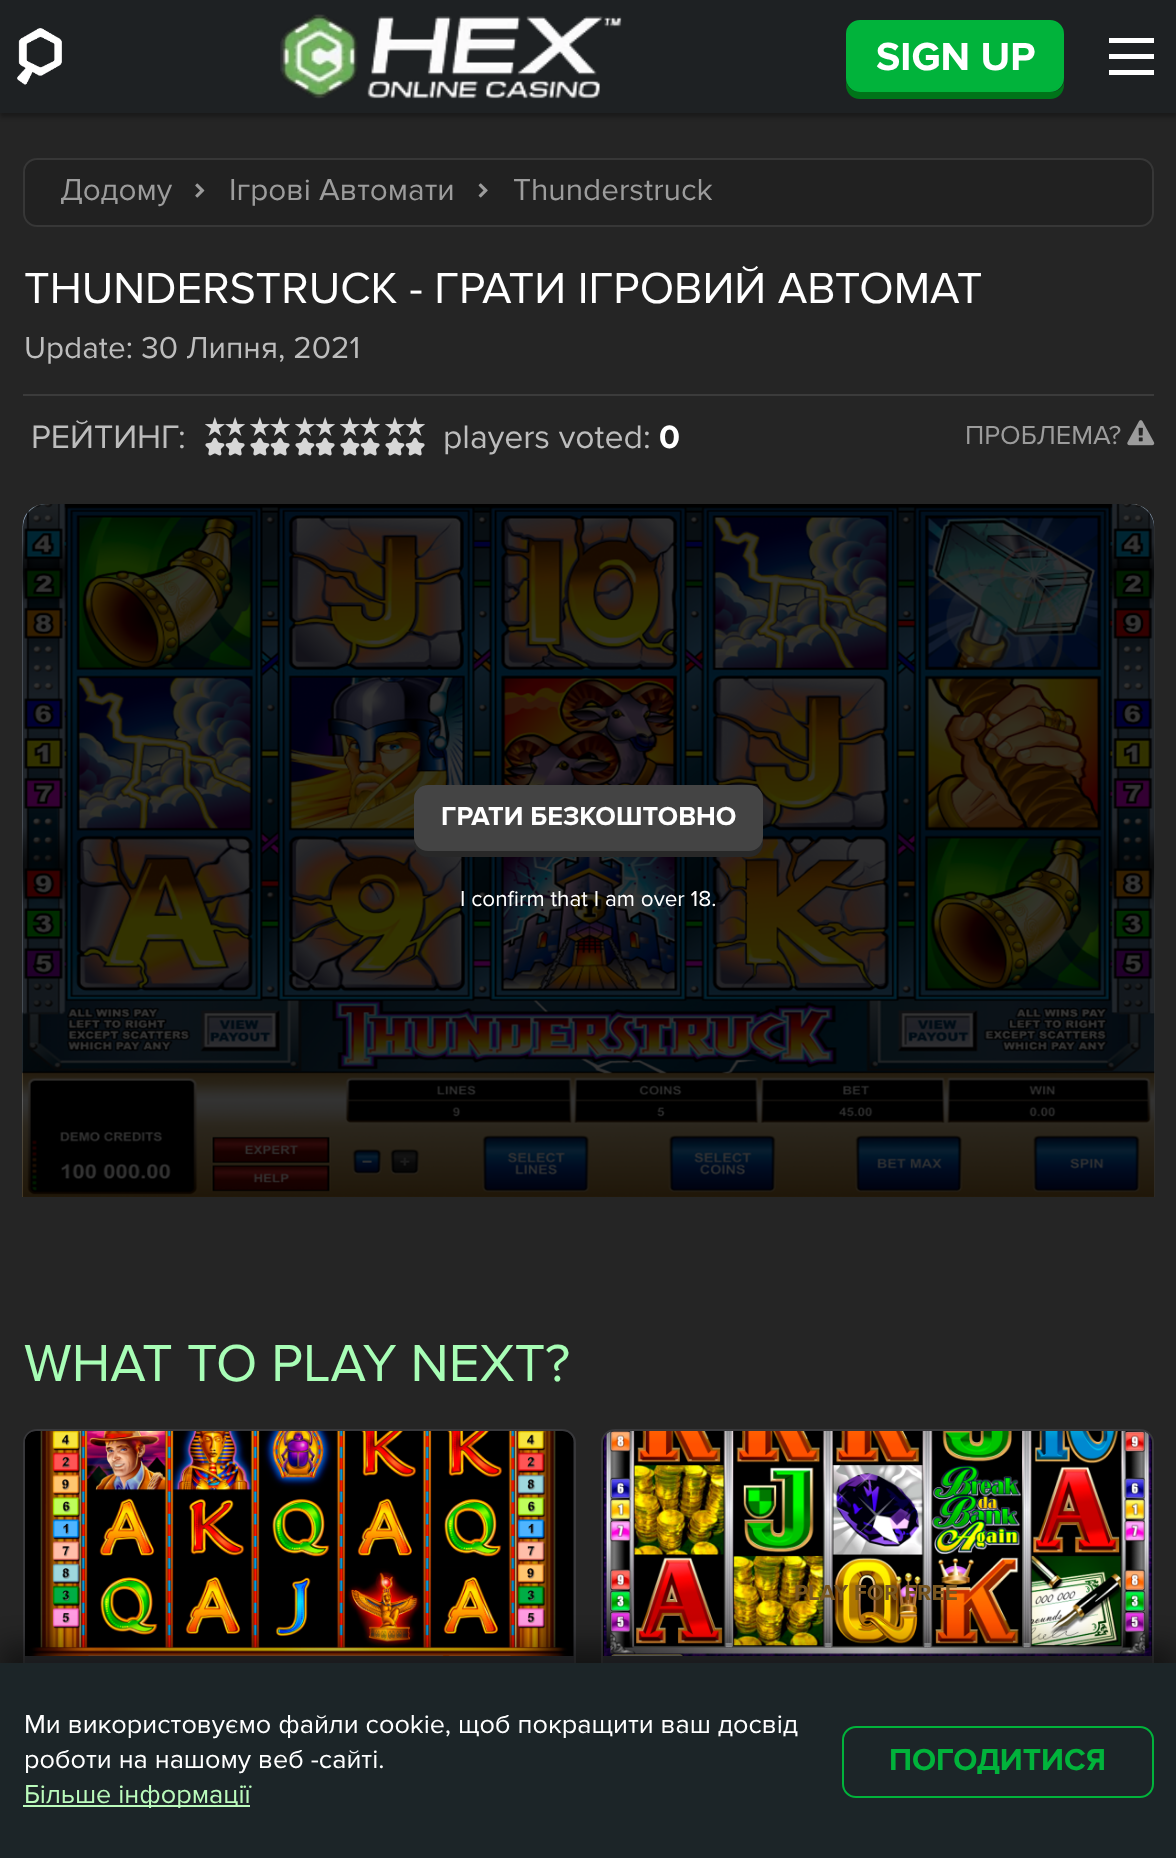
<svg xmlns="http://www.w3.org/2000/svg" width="1176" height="1858">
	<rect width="100%" height="100%" fill="#252525" />
	<rect x="0" y="5" width="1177" height="112" fill="#000000" fill-opacity="0.3" filter="blur(2px)" />
	<rect x="0" y="0" width="1176" height="113" fill="#1E2123" />
	<image x="17" y="28" width="45" height="57" href="assets/img1.png" />
	<image x="280" y="14" width="342" height="85" href="assets/img2.png" />
	<path d="M846 79V85C846 93 852 99 860 99H1050C1058 99 1064 93 1064 85V81C1063 88 1057 92 1051 92H860C852 92 846 86 846 79Z" fill="#007419" />
	<rect x="847" y="21" width="216" height="70" rx="13" fill="#01B33B" stroke="#01B33B" stroke-width="2" />
	<text x="876" y="70" font-family="Proxima Nova" font-size="40.5" font-weight="700" fill="#FFFFFF">SIGN UP</text>
	<rect x="1109" y="54" width="45" height="5" fill="#FFFFFF" />
	<rect x="1109" y="38" width="45" height="5" fill="#FFFFFF" />
	<rect x="1109" y="70" width="45" height="5" fill="#FFFFFF" />
	<rect x="24" y="159" width="1129" height="67" rx="13" fill="#212121" stroke="#373737" stroke-width="2" />
	<text x="60" y="200" font-family="Proxima Nova" font-size="31.5" fill="#9C9C9C">Додому</text>
	<image x="195" y="183" width="10" height="15" href="assets/img3.png" />
	<text x="229" y="200" font-family="Proxima Nova" font-size="31.5" fill="#9C9C9C">Ігрові Автомати</text>
	<image x="478" y="183" width="10" height="15" href="assets/img4.png" />
	<text x="513" y="200" font-family="Proxima Nova" font-size="31.5" fill="#9C9C9C">Thunderstruck</text>
	<text x="24" y="303" font-family="Proxima Nova" font-size="45" fill="#FFFFFF">THUNDERSTRUCK - ГРАТИ ІГРОВИЙ АВТОМАТ</text>
	<text x="24" y="358" font-family="Proxima Nova" font-size="31.5" fill="#BDBDBD">Update: 30 Липня, 2021</text>
	<rect x="23" y="394" width="1131" height="2" fill="#3B3B3B" />
	<text x="31" y="448" font-family="Proxima Nova" font-size="33.75" fill="#BDBDBD">РЕЙТИНГ:</text>
	<image x="205" y="417" width="40" height="39" href="assets/img5.png" />
	<image x="250" y="417" width="40" height="39" href="assets/img5.png" />
	<image x="295" y="417" width="40" height="39" href="assets/img5.png" />
	<image x="340" y="417" width="40" height="39" href="assets/img5.png" />
	<image x="385" y="417" width="40" height="39" href="assets/img5.png" />
	<text x="443" y="448" font-family="Proxima Nova" font-size="33.75" fill="#BDBDBD">players voted:</text>
	<text x="659" y="448" font-family="Proxima Nova" font-size="33.75" font-weight="700" fill="#FFFFFF">0</text>
	<text x="965" y="444" font-family="Proxima Nova" font-size="27" fill="#9C9C9C">ПРОБЛЕМА?</text>
	<image x="1127" y="420" width="28" height="26" href="assets/img6.png" />
	<image x="22" y="504" width="1133" height="693" href="assets/img7.png" />
	<path d="M46 504H1131C1143.5 504 1154 514.5 1154 527V1197H23V527C23 514.5 33.5 504 46 504Z" fill="#000000" fill-opacity="0.8" />
	<path d="M414 837V843C414 851 420 857 428 857H749C757 857 763 851 763 843V803V837C763 844 757 850 749 850H428C420 850 414 844 414 837Z" fill="#282828" />
	<rect x="414" y="785" width="349" height="66" rx="14" fill="#444444" />
	<text x="441" y="825" font-family="Proxima Nova" font-size="27" font-weight="700" fill="#FFFFFF">ГРАТИ БЕЗКОШТОВНО</text>
	<text x="460" y="906" font-family="Proxima Nova" font-size="22.5" fill="#FFFFFF">I confirm that I am over 18.</text>
	<text x="24" y="1381" font-family="Proxima Nova" font-size="54" fill="#A8FEB6">WHAT TO PLAY NEXT?</text>
	<rect x="24" y="1430" width="551" height="297" rx="13" fill="#2E2F33" stroke="#38383B" stroke-width="2" />
	<image x="25" y="1431" width="549" height="225" href="assets/img8.png" />
	<rect x="602" y="1430" width="551" height="329" rx="13" fill="#2E2F33" stroke="#38383B" stroke-width="2" />
	<image x="603" y="1431" width="549" height="225" href="assets/img9.png" />
	<text x="794" y="1600" font-family="Proxima Nova" font-size="22.5" font-weight="700" fill="#785621">PLAY FOR FREE</text>
	<rect x="0" y="1645" width="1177" height="196" fill="#000000" fill-opacity="0.45" filter="blur(13.5px)" />
	<rect x="0" y="1663" width="1176" height="195" fill="#1C2528" />
	<g font-family="Proxima Nova" font-size="27" fill="#FFFFFF">
		<text x="24" y="1733">Ми використовуємо файли cookie, щоб покращити ваш досвід</text>
		<text x="24" y="1768">роботи на нашому веб -сайті.</text>
	</g>
	<rect x="23" y="1805" width="227" height="2" fill="#BBFBBC" />
	<text x="24" y="1803" font-family="Proxima Nova" font-size="27" fill="#BBFBBC">Більше інформації</text>
	<rect x="843" y="1727" width="310" height="70" rx="13" fill="none" stroke="#01B33B" stroke-width="2" />
	<text x="889" y="1770" font-family="Proxima Nova" font-size="31.5" font-weight="700" fill="#01B33B">ПОГОДИТИСЯ</text>
</svg>
